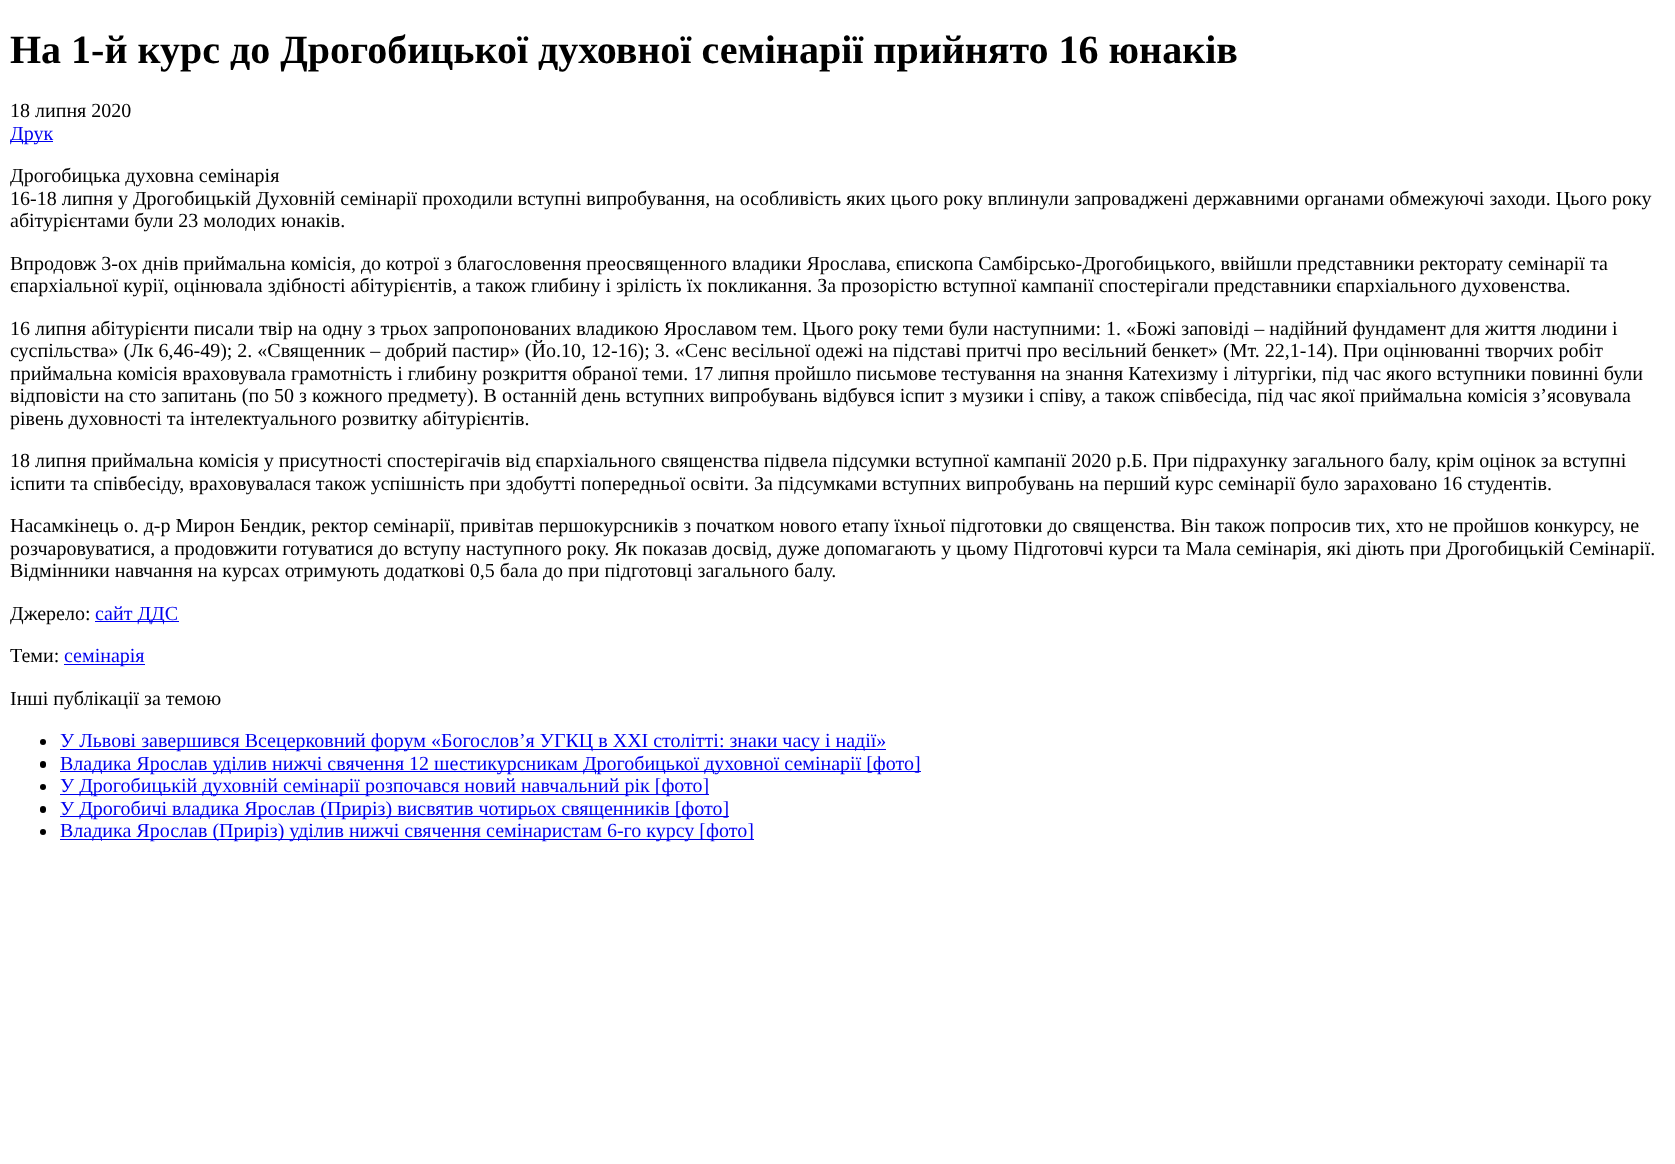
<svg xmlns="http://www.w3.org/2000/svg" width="1675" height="1164">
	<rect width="100%" height="100%" fill="#FFFFFF" />
	<text x="10" y="63" font-family="Liberation Serif" font-size="40" font-weight="700" fill="#000000">На 1-й курс до Дрогобицької духовної семінарії прийнято 16 юнаків</text>
	<text x="10" y="117" font-family="Liberation Serif" font-size="20" fill="#000000">18 липня 2020</text>
	<rect x="10" y="141" width="43" height="1" fill="#0000EE" />
	<text x="10" y="140" font-family="Liberation Serif" font-size="20" fill="#0000EE">Друк</text>
	<g font-family="Liberation Serif" font-size="20" fill="#000000">
		<text x="10" y="182">Дрогобицька духовна семінарія</text>
		<text x="10" y="205">16-18 липня у Дрогобицькій Духовній семінарії проходили вступні випробування, на особливість яких цього року вплинули запроваджені державними органами обмежуючі заходи. Цього року</text>
		<text x="10" y="227">абітурієнтами були 23 молодих юнаків.</text>
		<text x="10" y="270">Впродовж 3-ох днів приймальна комісія, до котрої з благословення преосвященного владики Ярослава, єпископа Самбірсько-Дрогобицького, ввійшли представники ректорату семінарії та</text>
		<text x="10" y="292">єпархіальної курії, оцінювала здібності абітурієнтів, а також глибину і зрілість їх покликання. За прозорістю вступної кампанії спостерігали представники єпархіального духовенства.</text>
		<text x="10" y="335">16 липня абітурієнти писали твір на одну з трьох запропонованих владикою Ярославом тем. Цього року теми були наступними: 1. «Божі заповіді – надійний фундамент для життя людини і</text>
		<text x="10" y="357">суспільства» (Лк 6,46-49); 2. «Священник – добрий пастир» (Йо.10, 12-16); 3. «Сенс весільної одежі на підставі притчі про весільний бенкет» (Мт. 22,1-14). При оцінюванні творчих робіт</text>
		<text x="10" y="380">приймальна комісія враховувала грамотність і глибину розкриття обраної теми. 17 липня пройшло письмове тестування на знання Катехизму і літургіки, під час якого вступники повинні були</text>
		<text x="10" y="402">відповісти на сто запитань (по 50 з кожного предмету). В останній день вступних випробувань відбувся іспит з музики і співу, а також співбесіда, під час якої приймальна комісія з’ясовувала</text>
		<text x="10" y="425">рівень духовності та інтелектуального розвитку абітурієнтів.</text>
		<text x="10" y="467">18 липня приймальна комісія у присутності спостерігачів від єпархіального священства підвела підсумки вступної кампанії 2020 р.Б. При підрахунку загального балу, крім оцінок за вступні</text>
		<text x="10" y="490">іспити та співбесіду, враховувалася також успішність при здобутті попередньої освіти. За підсумками вступних випробувань на перший курс семінарії було зараховано 16 студентів.</text>
		<text x="10" y="532">Насамкінець о. д-р Мирон Бендик, ректор семінарії, привітав першокурсників з початком нового етапу їхньої підготовки до священства. Він також попросив тих, хто не пройшов конкурсу, не</text>
		<text x="10" y="555">розчаровуватися, а продовжити готуватися до вступу наступного року. Як показав досвід, дуже допомагають у цьому Підготовчі курси та Мала семінарія, які діють при Дрогобицькій Семінарії.</text>
		<text x="10" y="577">Відмінники навчання на курсах отримують додаткові 0,5 бала до при підготовці загального балу.</text>
		<text x="10" y="620">Джерело:</text>
	</g>
	<rect x="95" y="621" width="84" height="1" fill="#0000EE" />
	<text x="95" y="620" font-family="Liberation Serif" font-size="20" fill="#0000EE">сайт ДДС</text>
	<text x="10" y="662" font-family="Liberation Serif" font-size="20" fill="#000000">Теми:</text>
	<rect x="64" y="664" width="81" height="1" fill="#0000EE" />
	<text x="64" y="662" font-family="Liberation Serif" font-size="20" fill="#0000EE">семінарія</text>
	<text x="10" y="705" font-family="Liberation Serif" font-size="20" fill="#000000">Інші публікації за темою</text>
	<circle cx="43" cy="742" r="3" fill="#000000" />
	<rect x="60" y="749" width="826" height="1" fill="#0000EE" />
	<text x="60" y="747" font-family="Liberation Serif" font-size="20" fill="#0000EE">У Львові завершився Всецерковний форум «Богослов’я УГКЦ в ХХІ столітті: знаки часу і надії»</text>
	<rect x="40" y="761" width="6" height="7" rx="3" fill="#000000" />
	<rect x="60" y="771" width="861" height="1" fill="#0000EE" />
	<text x="60" y="770" font-family="Liberation Serif" font-size="20" fill="#0000EE">Владика Ярослав уділив нижчі свячення 12 шестикурсникам Дрогобицької духовної семінарії [фото]</text>
	<circle cx="43" cy="787" r="3" fill="#000000" />
	<rect x="60" y="794" width="649" height="1" fill="#0000EE" />
	<text x="60" y="792" font-family="Liberation Serif" font-size="20" fill="#0000EE">У Дрогобицькій духовній семінарії розпочався новий навчальний рік [фото]</text>
	<rect x="40" y="806" width="6" height="7" rx="3" fill="#000000" />
	<rect x="60" y="816" width="669" height="1" fill="#0000EE" />
	<text x="60" y="815" font-family="Liberation Serif" font-size="20" fill="#0000EE">У Дрогобичі владика Ярослав (Приріз) висвятив чотирьох священників [фото]</text>
	<circle cx="43" cy="832" r="3" fill="#000000" />
	<rect x="60" y="839" width="694" height="1" fill="#0000EE" />
	<text x="60" y="837" font-family="Liberation Serif" font-size="20" fill="#0000EE">Владика Ярослав (Приріз) уділив нижчі свячення семінаристам 6-го курсу [фото]</text>
</svg>
